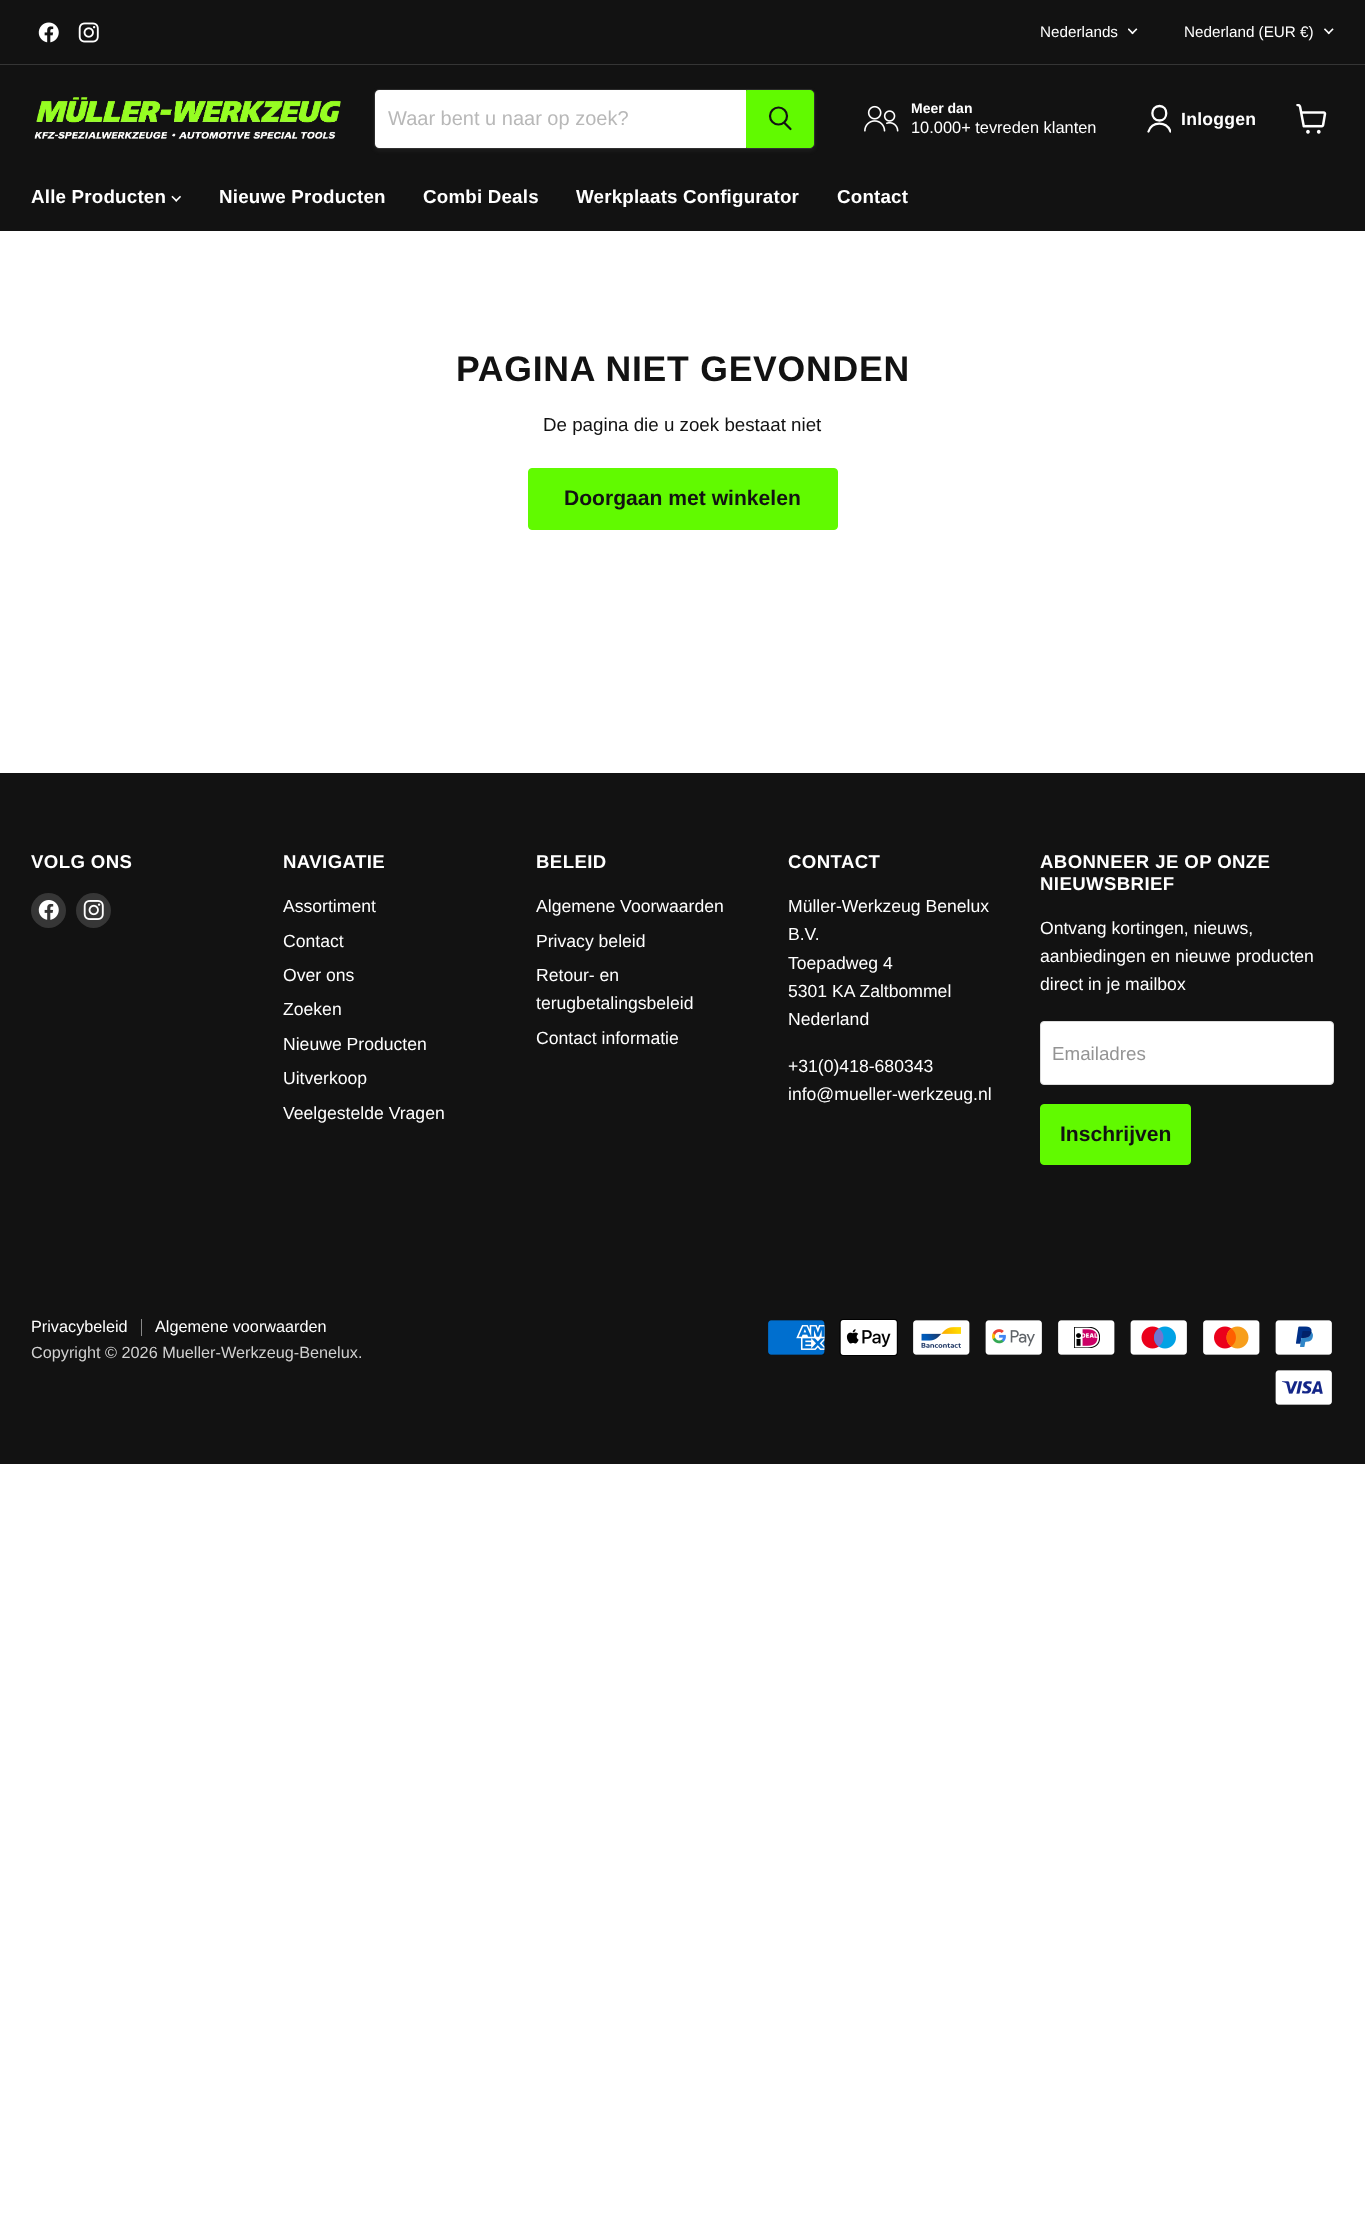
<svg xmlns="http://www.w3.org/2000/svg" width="1365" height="2227">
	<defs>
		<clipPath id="clip1"><rect x="1146" y="104" width="25" height="30" /></clipPath>
	</defs>
	<rect width="100%" height="100%" fill="#FFFFFF" />
	<rect x="0" y="0" width="1365" height="64" fill="#121212" />
	<rect x="0" y="64" width="1365" height="1" fill="#353535" />
	<image x="38" y="22" width="21" height="21" href="assets/img1.png" />
	<image x="78" y="22" width="21" height="21" href="assets/img2.png" />
	<text x="1040" y="37" font-family="Liberation Sans" font-size="15.25" fill="#FFFFFF">Nederlands</text>
	<image x="1128" y="28" width="10" height="7" href="assets/img3.png" />
	<text x="1184" y="37" font-family="Liberation Sans" font-size="15.25" fill="#FFFFFF">Nederland (EUR €)</text>
	<image x="1324" y="28" width="10" height="7" href="assets/img4.png" />
	<rect x="0" y="65" width="1365" height="166" fill="#121212" />
	<image x="34" y="97" width="307" height="42" href="assets/img5.png" />
	<rect x="374" y="91" width="441" height="60" rx="5" fill="#808080" fill-opacity="0.11" filter="blur(2px)" />
	<rect x="374.5" y="89.5" width="440" height="59" rx="4.5" fill="none" stroke="#808080" stroke-opacity="0.2" />
	<path d="M379 90H746V148H379C377 148 375 146 375 144V94C375 92 377 90 379 90Z" fill="#FFFFFF" />
	<text x="388" y="125" font-family="Liberation Sans" font-size="20" fill="#B8B8B8">Waar bent u naar op zoek?</text>
	<path d="M746.5 90.5H810C812 90.5 813.5 92 813.5 94V144C813.5 146 812 147.5 810 147.5H746.5Z" fill="#61FA00" stroke="#61FA00" />
	<path d="M790.5 129L784.5 123" fill="none" stroke="#121212" stroke-width="2.2" stroke-linecap="round" />
	<circle cx="778.5" cy="116" r="8.5" fill="none" stroke="#121212" stroke-width="2.2" />
	<image x="864" y="105" width="35" height="27" href="assets/img6.png" />
	<text x="911" y="113" font-family="Liberation Sans" font-size="14" font-weight="700" fill="#FFFFFF">Meer dan</text>
	<text x="911" y="133" font-family="Liberation Sans" font-size="16.4" fill="#FFFFFF">10.000+ tevreden klanten</text>
	<path d="M1159.5 120.5C1168.5 120.5 1168.5 106 1159.5 106C1150 106 1150 120.5 1159.5 120.5Z" fill="none" stroke="#FFFFFF" stroke-width="2.3" stroke-linecap="round" stroke-linejoin="round" />
	<g clip-path="url(#clip1)">
		<path d="M1170.5 131.5C1166.5 121 1152 121 1148.5 131.5" fill="none" stroke="#FFFFFF" stroke-width="2.3" stroke-linecap="round" stroke-linejoin="round" />
	</g>
	<text x="1181" y="125" font-family="Liberation Sans" font-size="17.6" font-weight="700" letter-spacing="0.25" fill="#FFFFFF">Inloggen</text>
	<image x="1296" y="104" width="31" height="30" href="assets/img7.png" />
	<text x="31" y="203" font-family="Liberation Sans" font-size="18.75" font-weight="700" letter-spacing="0.2" fill="#FFFFFF">Alle Producten</text>
	<image x="171" y="195" width="10" height="7" href="assets/img8.png" />
	<g font-family="Liberation Sans" font-size="18.75" font-weight="700" letter-spacing="0.2" fill="#FFFFFF">
		<text x="219" y="203">Nieuwe Producten</text>
		<text x="423" y="203">Combi Deals</text>
		<text x="576" y="203">Werkplaats Configurator</text>
		<text x="837" y="203">Contact</text>
	</g>
	<text x="456" y="381" font-family="Liberation Sans" font-size="35.6" font-weight="700" letter-spacing="0.75" fill="#121212">PAGINA NIET GEVONDEN</text>
	<text x="543" y="431" font-family="Liberation Sans" font-size="18.75" fill="#121212">De pagina die u zoek bestaat niet</text>
	<rect x="528.5" y="468.5" width="309" height="61" rx="3.5" fill="#61FA00" stroke="#61FA00" />
	<text x="564" y="505" font-family="Liberation Sans" font-size="21.1" font-weight="700" fill="#121212">Doorgaan met winkelen</text>
	<rect x="0" y="773" width="1365" height="691" fill="#121212" />
	<text x="31" y="868" font-family="Liberation Sans" font-size="18.6" font-weight="700" letter-spacing="0.4" fill="#FFFFFF">VOLG ONS</text>
	<circle cx="48.5" cy="910.5" r="17.5" fill="#363636" />
	<image x="38" y="900" width="21" height="20" href="assets/img9.png" />
	<circle cx="93.5" cy="910.5" r="17.5" fill="#363636" />
	<image x="83" y="900" width="21" height="20" href="assets/img10.png" />
	<text x="283" y="868" font-family="Liberation Sans" font-size="18.6" font-weight="700" letter-spacing="0.4" fill="#FFFFFF">NAVIGATIE</text>
	<g font-family="Liberation Sans" font-size="17.6" fill="#FFFFFF">
		<text x="283" y="912">Assortiment</text>
		<text x="283" y="947">Contact</text>
		<text x="283" y="981">Over ons</text>
		<text x="283" y="1015">Zoeken</text>
		<text x="283" y="1050">Nieuwe Producten</text>
		<text x="283" y="1084">Uitverkoop</text>
		<text x="283" y="1119">Veelgestelde Vragen</text>
	</g>
	<text x="536" y="868" font-family="Liberation Sans" font-size="18.6" font-weight="700" letter-spacing="0.4" fill="#FFFFFF">BELEID</text>
	<g font-family="Liberation Sans" font-size="17.6" fill="#FFFFFF">
		<text x="536" y="912">Algemene Voorwaarden</text>
		<text x="536" y="947">Privacy beleid</text>
		<text x="536" y="981">Retour- en</text>
		<text x="536" y="1009">terugbetalingsbeleid</text>
		<text x="536" y="1044">Contact informatie</text>
	</g>
	<text x="788" y="868" font-family="Liberation Sans" font-size="18.6" font-weight="700" letter-spacing="0.4" fill="#FFFFFF">CONTACT</text>
	<g font-family="Liberation Sans" font-size="17.6" fill="#FFFFFF">
		<text x="788" y="912">Müller-Werkzeug Benelux</text>
		<text x="788" y="940">B.V.</text>
		<text x="788" y="969">Toepadweg 4</text>
		<text x="788" y="997">5301 KA Zaltbommel</text>
		<text x="788" y="1025">Nederland</text>
		<text x="788" y="1072">+31(0)418-680343</text>
		<text x="788" y="1100">info@mueller-werkzeug.nl</text>
	</g>
	<g font-family="Liberation Sans" font-size="18.6" font-weight="700" letter-spacing="0.4" fill="#FFFFFF">
		<text x="1040" y="868">ABONNEER JE OP ONZE</text>
		<text x="1040" y="890">NIEUWSBRIEF</text>
	</g>
	<g font-family="Liberation Sans" font-size="17.6" fill="#FFFFFF">
		<text x="1040" y="934">Ontvang kortingen, nieuws,</text>
		<text x="1040" y="962">aanbiedingen en nieuwe producten</text>
		<text x="1040" y="990">direct in je mailbox</text>
	</g>
	<rect x="1040.5" y="1021.5" width="293" height="63" rx="3.5" fill="#FFFFFF" stroke="#DDDDDD" />
	<text x="1052" y="1060" font-family="Liberation Sans" font-size="18.75" fill="#949494">Emailadres</text>
	<rect x="1040.5" y="1104.5" width="150" height="60" rx="3.5" fill="#61FA00" stroke="#61FA00" />
	<text x="1060" y="1141" font-family="Liberation Sans" font-size="21.1" font-weight="700" fill="#121212">Inschrijven</text>
	<rect x="141" y="1319" width="1" height="17" fill="#898989" />
	<g font-family="Liberation Sans" font-size="16.25" fill="#FFFFFF">
		<text x="31" y="1332">Privacybeleid</text>
		<text x="155" y="1332">Algemene voorwaarden</text>
	</g>
	<text x="31" y="1358" font-family="Liberation Sans" font-size="16.25" fill="#D0D0D0">Copyright © 2026 Mueller-Werkzeug-Benelux.</text>
	<image x="768" y="1320" width="57" height="35" href="assets/img11.png" />
	<image x="839" y="1319" width="59" height="37" href="assets/img12.png" />
	<image x="913" y="1320" width="57" height="35" href="assets/img13.png" />
	<image x="985" y="1320" width="57" height="35" href="assets/img14.png" />
	<image x="1058" y="1320" width="57" height="35" href="assets/img15.png" />
	<image x="1130" y="1320" width="57" height="35" href="assets/img16.png" />
	<image x="1203" y="1320" width="57" height="35" href="assets/img17.png" />
	<image x="1275" y="1320" width="57" height="35" href="assets/img18.png" />
	<image x="1275" y="1370" width="57" height="35" href="assets/img19.png" />
</svg>
